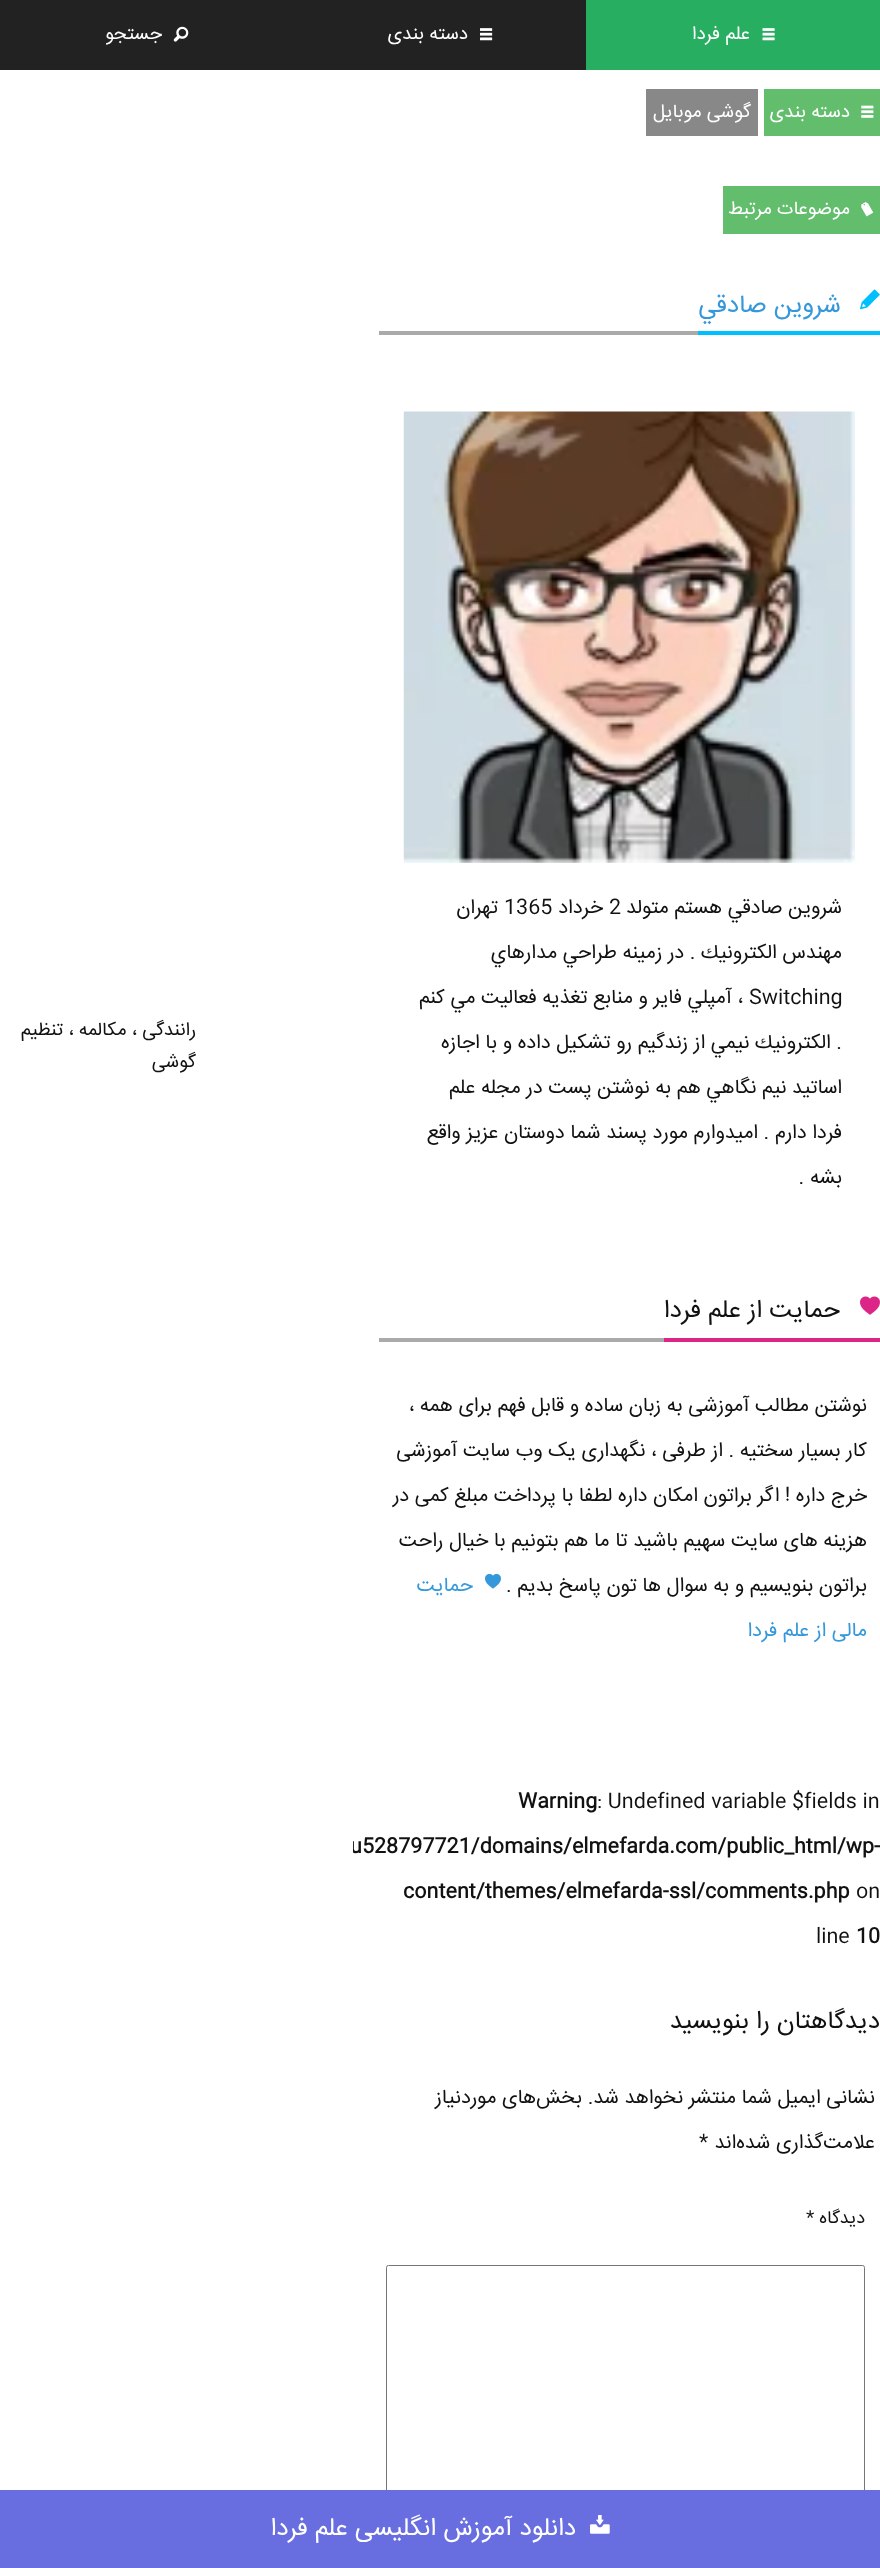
<svg xmlns="http://www.w3.org/2000/svg" width="880" height="2568">
	<rect width="100%" height="100%" fill="#FFFFFF" />
	<rect x="586" y="0" width="294" height="70" fill="#27AE60" />
	<image x="762" y="28" width="13" height="13" href="assets/img1.png" />
	<text x="750" y="39" font-family="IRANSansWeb" font-size="18.75" direction="rtl" fill="#FFFFFF">علم فردا</text>
	<rect x="0" y="0" width="586" height="70" fill="#222222" />
	<image x="480" y="28" width="13" height="13" href="assets/img2.png" />
	<text x="468" y="39" font-family="IRANSansWeb" font-size="18.75" direction="rtl" fill="#FFFFFF">دسته بندی</text>
	<image x="173" y="26" width="16" height="16" href="assets/img3.png" />
	<text x="162" y="39" font-family="IRANSansWeb" font-size="18.75" direction="rtl" fill="#FFFFFF">جستجو</text>
	<rect x="764" y="89" width="116" height="47" fill="#62BD6D" />
	<image x="861" y="105" width="13" height="13" href="assets/img4.png" />
	<text x="850" y="117" font-family="IRANSansWeb" font-size="18.75" direction="rtl" fill="#FFFFFF">دسته بندی</text>
	<rect x="646" y="89" width="112" height="47" fill="#888888" />
	<text x="751" y="117" font-family="IRANSansWeb" font-size="18.75" direction="rtl" fill="#FFFFFF">گوشی موبایل</text>
	<rect x="723" y="186" width="157" height="48" fill="#62BD6D" />
	<image x="861" y="202" width="13" height="15" href="assets/img5.png" />
	<text x="850" y="214" font-family="IRANSansWeb" font-size="18.75" direction="rtl" fill="#FFFFFF">موضوعات مرتبط</text>
	<rect x="698" y="331" width="182" height="4" fill="#00BFFF" />
	<image x="860" y="289" width="20" height="21" href="assets/img6.png" />
	<text x="841" y="312" font-family="IRANSansWeb" font-size="25" direction="rtl" fill="#3498DB">شروين صادقي</text>
	<rect x="379" y="331" width="319" height="4" fill="#AAAAAA" />
	<image x="403" y="411" width="452" height="452" href="assets/img7.png" />
	<text x="842" y="913" font-family="IRANSansWeb" font-size="20" direction="rtl" fill="#111111">شروين صادقي هستم متولد</text>
	<text x="609" y="913" font-family="IRANSansWeb" font-size="20" fill="#111111">2</text>
	<text x="603" y="913" font-family="IRANSansWeb" font-size="20" direction="rtl" fill="#111111">خرداد</text>
	<text x="504" y="913" font-family="IRANSansWeb" font-size="20" fill="#111111">1365</text>
	<g font-family="IRANSansWeb" font-size="20" direction="rtl" fill="#111111">
		<text x="498" y="913">تهران</text>
		<text x="842" y="958">مهندس الكترونيك . در زمينه طراحي مدارهاي</text>
	</g>
	<text x="749" y="1003" font-family="IRANSansWeb" font-size="20" fill="#111111">Switching</text>
	<g font-family="IRANSansWeb" font-size="20" direction="rtl" fill="#111111">
		<text x="743" y="1003">، آمپلي فاير و منابع تغذيه فعاليت مي كنم</text>
		<text x="842" y="1048">. الكترونيك نيمي از زندگيم رو تشكيل داده و با اجازه</text>
		<text x="842" y="1093">اساتيد نيم نگاهي هم به نوشتن پست در مجله علم</text>
		<text x="842" y="1138">فردا دارم .</text>
		<text x="758" y="1138">اميدوارم مورد پسند شما دوستان عزيز واقع</text>
		<text x="842" y="1183">بشه .</text>
	</g>
	<rect x="664" y="1338" width="216" height="4" fill="#DB2688" />
	<image x="860" y="1296" width="20" height="19" href="assets/img8.png" />
	<text x="840" y="1317" font-family="IRANSansWeb" font-size="25" direction="rtl" fill="#111111">حمایت از علم فردا</text>
	<rect x="379" y="1338" width="285" height="4" fill="#AAAAAA" />
	<g font-family="IRANSansWeb" font-size="20" direction="rtl" fill="#111111">
		<text x="867" y="1411">نوشتن مطالب آموزشی به زبان ساده و قابل فهم برای همه ،</text>
		<text x="867" y="1456">کار بسیار سختیه . از طرفی ، نگهداری یک وب سایت آموزشی</text>
		<text x="867" y="1501">خرج داره ! اگر براتون امکان داره لطفا با پرداخت مبلغ کمی در</text>
		<text x="867" y="1546">هزینه های سایت سهیم باشید تا ما هم بتونیم با خیال راحت</text>
	</g>
	<image x="485" y="1573" width="16" height="16" href="assets/img9.png" />
	<g font-family="IRANSansWeb" font-size="20" direction="rtl" fill="#3498DB">
		<text x="473" y="1591">حمایت</text>
		<text x="867" y="1636">مالی از علم فردا</text>
	</g>
	<text x="867" y="1591" font-family="IRANSansWeb" font-size="20" direction="rtl" fill="#111111">براتون بنویسیم و به سوال ها تون پاسخ بدیم .</text>
	<text x="597" y="1807" font-family="IRANSansWeb" font-size="20" fill="#111111">: Undefined variable $fields in</text>
	<g font-family="IRANSansWeb" font-size="20" font-weight="700" fill="#111111">
		<text x="518" y="1807">Warning</text>
		<text x="350" y="1852">u528797721/domains/elmefarda.com/public_html/wp-</text>
	</g>
	<text x="856" y="1897" font-family="IRANSansWeb" font-size="20" fill="#111111">on</text>
	<g font-family="IRANSansWeb" font-size="20" font-weight="700" fill="#111111">
		<text x="403" y="1897">content/themes/elmefarda-ssl/comments.php</text>
		<text x="856" y="1942">10</text>
	</g>
	<text x="816" y="1942" font-family="IRANSansWeb" font-size="20" fill="#111111">line</text>
	<text x="880" y="2028" font-family="IRANSansWeb" font-size="25" direction="rtl" fill="#111111">دیدگاهتان را بنویسید</text>
	<g font-family="IRANSansWeb" font-size="20" direction="rtl" fill="#111111">
		<text x="875" y="2103">نشانی ایمیل شما منتشر نخواهد شد.</text>
		<text x="582" y="2103">بخش‌های موردنیاز</text>
		<text x="875" y="2148">علامت‌گذاری شده‌اند</text>
	</g>
	<text x="699" y="2148" font-family="IRANSansWeb" font-size="20" fill="#111111">*</text>
	<text x="865" y="2223" font-family="IRANSansWeb" font-size="18" direction="rtl" fill="#111111">دیدگاه</text>
	<text x="806" y="2223" font-family="IRANSansWeb" font-size="18" fill="#111111">*</text>
	<rect x="386.5" y="2265.5" width="478" height="257" rx="2" fill="none" stroke="#767676" />
	<rect x="351" y="1841" width="2" height="12" fill="#FFFFFF" />
	<g font-family="IRANSansWeb" font-size="18.75" direction="rtl" fill="#111111">
		<text x="196" y="1035">رانندگی ، مکالمه ، تنظیم</text>
		<text x="196" y="1067">گوشی</text>
	</g>
	<rect x="0" y="2490" width="880" height="78" fill="#686DE0" />
	<image x="590" y="2515" width="20" height="19" href="assets/img10.png" />
	<text x="576" y="2535" font-family="IRANSansWeb" font-size="25" direction="rtl" fill="#FFFFFF">دانلود آموزش انگلیسی علم فردا</text>
</svg>
